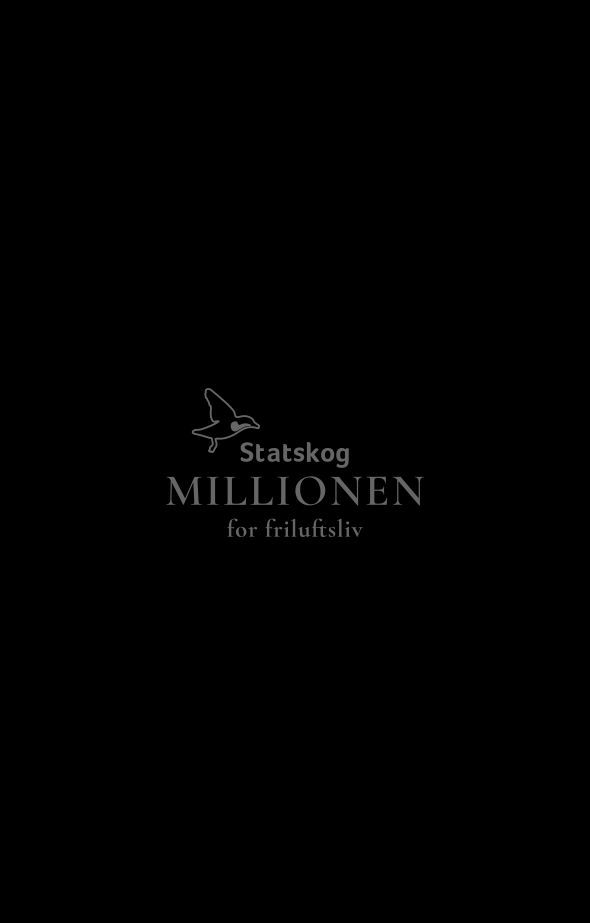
<svg xmlns="http://www.w3.org/2000/svg" width="590" height="923">
	<rect width="100%" height="100%" fill="#000000" />
	<image x="166" y="388" width="258" height="149" href="assets/img1.png" />
</svg>
